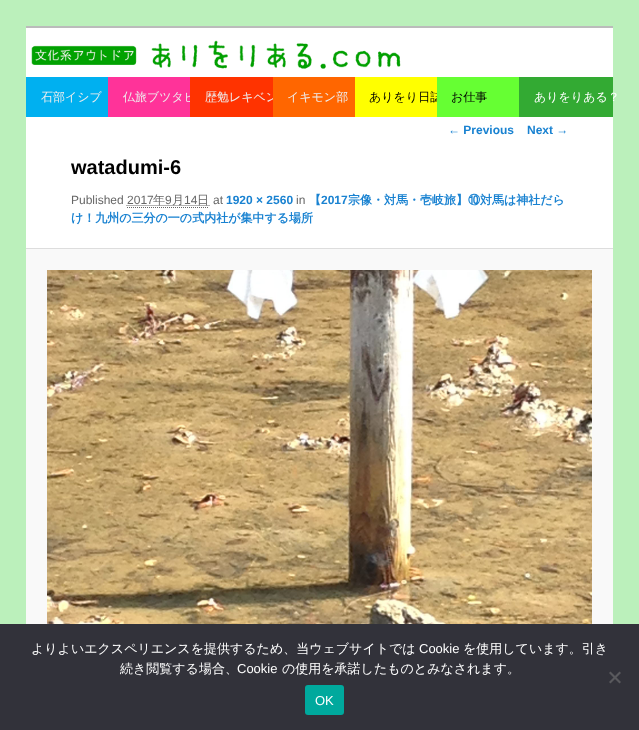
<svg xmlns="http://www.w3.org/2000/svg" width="639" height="730">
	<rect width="100%" height="100%" fill="#BBF0BB" />
	<rect x="26" y="28" width="587" height="220" fill="#FFFFFF" />
	<rect x="26" y="26" width="587" height="2" fill="#BBBBBB" />
	<image x="31" y="40" width="370" height="29" href="assets/img1.png" />
	<rect x="519" y="77" width="94" height="40" fill="#33AA33" />
	<rect x="26" y="77" width="82" height="40" fill="#00B0F0" />
	<text x="41" y="101" font-family="WenQuanYi Zen Hei" font-size="12" font-weight="500" fill="#EEEEEE">石部イシブ</text>
	<rect x="108" y="77" width="82" height="40" fill="#FF3399" />
	<text x="123" y="101" font-family="WenQuanYi Zen Hei" font-size="12" font-weight="500" fill="#EEEEEE">仏旅ブツタビ</text>
	<rect x="190" y="77" width="83" height="40" fill="#FF3300" />
	<text x="205" y="101" font-family="WenQuanYi Zen Hei" font-size="12" font-weight="500" fill="#EEEEEE">歴勉レキベン</text>
	<rect x="273" y="77" width="82" height="40" fill="#FF6600" />
	<text x="287" y="101" font-family="WenQuanYi Zen Hei" font-size="12" font-weight="500" fill="#EEEEEE">イキモン部</text>
	<rect x="355" y="77" width="82" height="40" fill="#FFFF00" />
	<text x="369" y="101" font-family="WenQuanYi Zen Hei" font-size="12" font-weight="500" fill="#000000">ありをり日誌</text>
	<rect x="437" y="77" width="82" height="40" fill="#66FF33" />
	<text x="451" y="101" font-family="WenQuanYi Zen Hei" font-size="12" font-weight="500" fill="#000000">お仕事</text>
	<text x="534" y="101" font-family="WenQuanYi Zen Hei" font-size="12" font-weight="500" fill="#FFFFFF">ありをりある？</text>
	<g font-family="Liberation Sans" font-size="12" font-weight="700" fill="#1982D1">
		<text x="448" y="134">← Previous</text>
		<text x="527" y="134">Next →</text>
	</g>
	<text x="71" y="174" font-family="Liberation Sans" font-size="20" font-weight="700" fill="#000000">watadumi-6</text>
	<text x="71" y="204" font-family="Liberation Sans" font-size="12" fill="#666666">Published 2017</text>
	<path d="M126.5 205.5H209.5" fill="none" stroke="#666666" stroke-dasharray="1 1" />
	<text x="153" y="204" font-family="WenQuanYi Zen Hei" font-size="12" font-weight="500" fill="#666666">年</text>
	<path d="M127 207.5H209" fill="none" stroke="#666666" stroke-dasharray="1 1" />
	<text x="165" y="204" font-family="Liberation Sans" font-size="12" fill="#666666">9</text>
	<text x="172" y="204" font-family="WenQuanYi Zen Hei" font-size="12" font-weight="500" fill="#666666">月</text>
	<text x="184" y="204" font-family="Liberation Sans" font-size="12" fill="#666666">14</text>
	<text x="197" y="204" font-family="WenQuanYi Zen Hei" font-size="12" font-weight="500" fill="#666666">日</text>
	<text x="213" y="204" font-family="Liberation Sans" font-size="12" fill="#666666">at</text>
	<text x="226" y="204" font-family="Liberation Sans" font-size="12" font-weight="700" fill="#1982D1">1920 × 2560</text>
	<text x="296" y="204" font-family="Liberation Sans" font-size="12" fill="#666666">in</text>
	<text x="309" y="204" font-family="WenQuanYi Zen Hei" font-size="12" font-weight="700" fill="#1982D1">【</text>
	<text x="321" y="204" font-family="Liberation Sans" font-size="12" font-weight="700" fill="#1982D1">2017</text>
	<g font-family="WenQuanYi Zen Hei" font-size="12" font-weight="700" fill="#1982D1">
		<text x="348" y="204">宗像・対馬・壱岐旅】⑩対馬は神社だら</text>
		<text x="71" y="222">け！九州の三分の一の式内社が集中する場所</text>
	</g>
	<rect x="26" y="249" width="587" height="375" fill="#F9F9F9" />
	<rect x="26" y="248" width="587" height="1" fill="#DDDDDD" />
	<image x="47" y="270" width="545" height="354" href="assets/img2.png" />
	<rect x="0" y="624" width="639" height="106" fill="#32323A" />
	<text x="31" y="653" font-family="WenQuanYi Zen Hei" font-size="13" font-weight="500" fill="#FFFFFF">よりよいエクスペリエンスを提供するため、当ウェブサイトでは</text>
	<text x="419" y="653" font-family="Liberation Sans" font-size="13" fill="#FFFFFF">Cookie</text>
	<g font-family="WenQuanYi Zen Hei" font-size="13" font-weight="500" fill="#FFFFFF">
		<text x="463" y="653">を使用しています。引き</text>
		<text x="120" y="673">続き閲覧する場合、</text>
	</g>
	<text x="237" y="673" font-family="Liberation Sans" font-size="13" fill="#FFFFFF">Cookie</text>
	<text x="282" y="673" font-family="WenQuanYi Zen Hei" font-size="13" font-weight="500" fill="#FFFFFF">の使用を承諾したものとみなされます。</text>
	<path d="M619.5 671.5L621 673L610.5 683.5L609 682Z" fill="#59595D" />
	<path d="M609 673L610.5 671.5L621 682L619.5 683.5Z" fill="#59595D" />
	<rect x="305" y="685" width="39" height="30" rx="3" fill="#00A99D" />
	<text x="315" y="705" font-family="Liberation Sans" font-size="13" fill="#FFFFFF">OK</text>
</svg>
